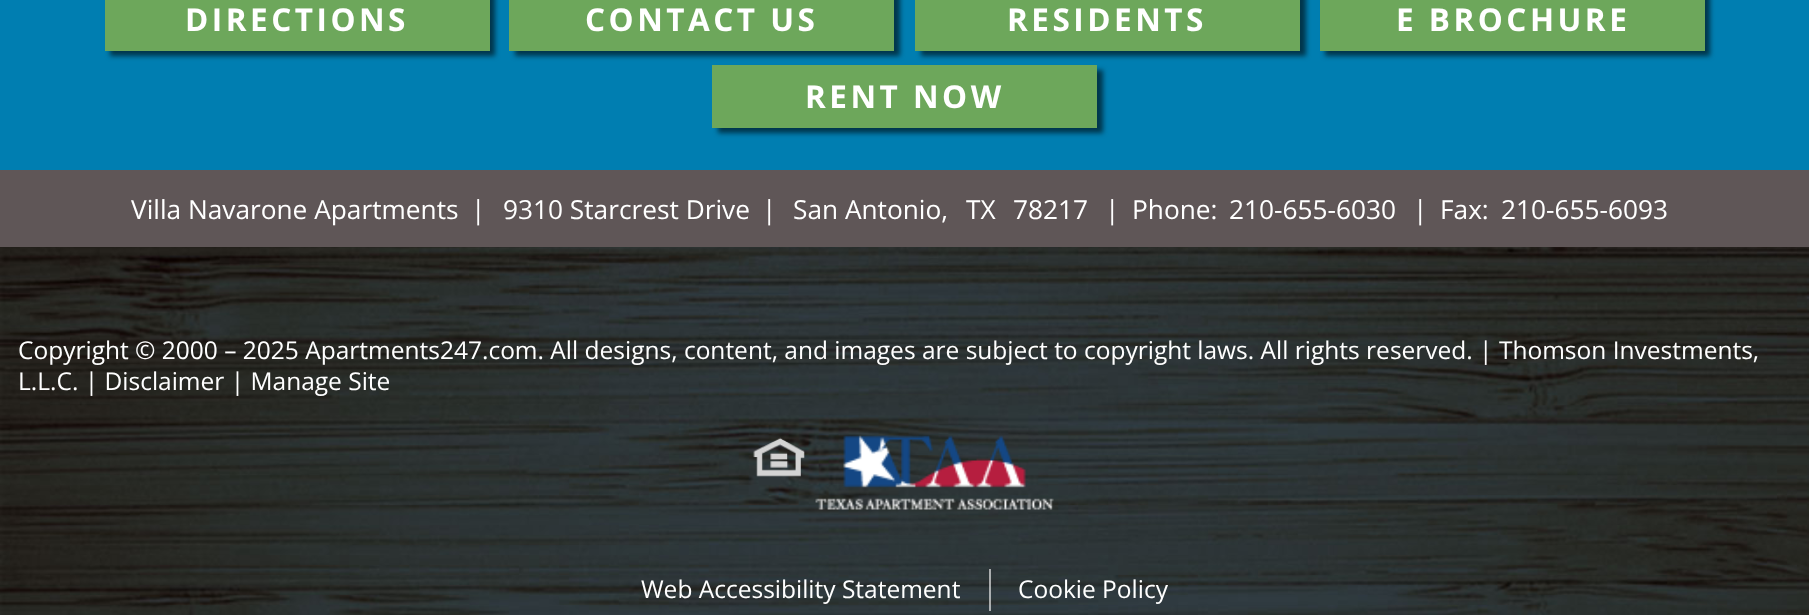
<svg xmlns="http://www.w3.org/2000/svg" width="1809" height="615">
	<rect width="100%" height="100%" fill="#FFFFFF" />
	<image x="0" y="247" width="1809" height="368" href="assets/img1.png" />
	<rect x="0" y="0" width="1809" height="170" fill="#007EB1" />
	<rect x="110" y="-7" width="385" height="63" fill="#00354B" filter="blur(2.5px)" />
	<rect x="105" y="0" width="385" height="51" fill="#6DA75B" />
	<text x="185" y="31" font-family="Open Sans" font-size="31.5" font-weight="700" letter-spacing="3.5" fill="#FFFFFF">DIRECTIONS</text>
	<rect x="515" y="-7" width="385" height="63" fill="#00354B" filter="blur(2.5px)" />
	<rect x="509" y="0" width="385" height="51" fill="#6DA75B" />
	<text x="585" y="31" font-family="Open Sans" font-size="31.5" font-weight="700" letter-spacing="3.5" fill="#FFFFFF">CONTACT US</text>
	<rect x="921" y="-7" width="385" height="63" fill="#00354B" filter="blur(2.5px)" />
	<rect x="915" y="0" width="385" height="51" fill="#6DA75B" />
	<text x="1007" y="31" font-family="Open Sans" font-size="31.5" font-weight="700" letter-spacing="3.5" fill="#FFFFFF">RESIDENTS</text>
	<rect x="1325" y="-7" width="385" height="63" fill="#00354B" filter="blur(2.5px)" />
	<rect x="1320" y="0" width="385" height="51" fill="#6DA75B" />
	<text x="1396" y="31" font-family="Open Sans" font-size="31.5" font-weight="700" letter-spacing="3.5" fill="#FFFFFF">E BROCHURE</text>
	<rect x="718" y="70" width="385" height="63" fill="#00354B" filter="blur(2.5px)" />
	<rect x="712" y="65" width="385" height="63" fill="#6DA75B" />
	<text x="805" y="108" font-family="Open Sans" font-size="31.5" font-weight="700" letter-spacing="3.5" fill="#FFFFFF">RENT NOW</text>
	<rect x="0" y="170" width="1809" height="77" fill="#5F5657" />
	<g font-family="Open Sans" font-size="26.25" fill="#FFFFFF">
		<text x="131" y="219">Villa Navarone Apartments</text>
		<text x="471" y="219">|</text>
		<text x="503" y="219">9310 Starcrest Drive</text>
		<text x="762" y="219">|</text>
		<text x="793" y="219">San Antonio,</text>
		<text x="966" y="219">TX</text>
		<text x="1013" y="219">78217</text>
		<text x="1105" y="219">|</text>
		<text x="1132" y="219">Phone:</text>
		<text x="1229" y="219">210-655-6030</text>
		<text x="1413" y="219">|</text>
		<text x="1440" y="219">Fax:</text>
		<text x="1501" y="219">210-655-6093</text>
	</g>
	<g font-family="Open Sans" font-size="24.5" fill="#FFFFFF">
		<text x="18" y="359">Copyright © 2000 – 2025 Apartments247.com. All designs, content, and images are subject to copyright laws. All rights reserved. | Thomson Investments,</text>
		<text x="18" y="390">L.L.C. | Disclaimer | Manage Site</text>
	</g>
	<image x="753" y="437" width="52" height="40" href="assets/img2.png" />
	<image x="815" y="435" width="239" height="75" href="assets/img3.png" />
	<text x="641" y="598" font-family="Open Sans" font-size="24.5" fill="#FFFFFF">Web Accessibility Statement</text>
	<rect x="989" y="569" width="2" height="42" fill="#FFFFFF" fill-opacity="0.6" />
	<text x="1018" y="598" font-family="Open Sans" font-size="24.5" fill="#FFFFFF">Cookie Policy</text>
</svg>
